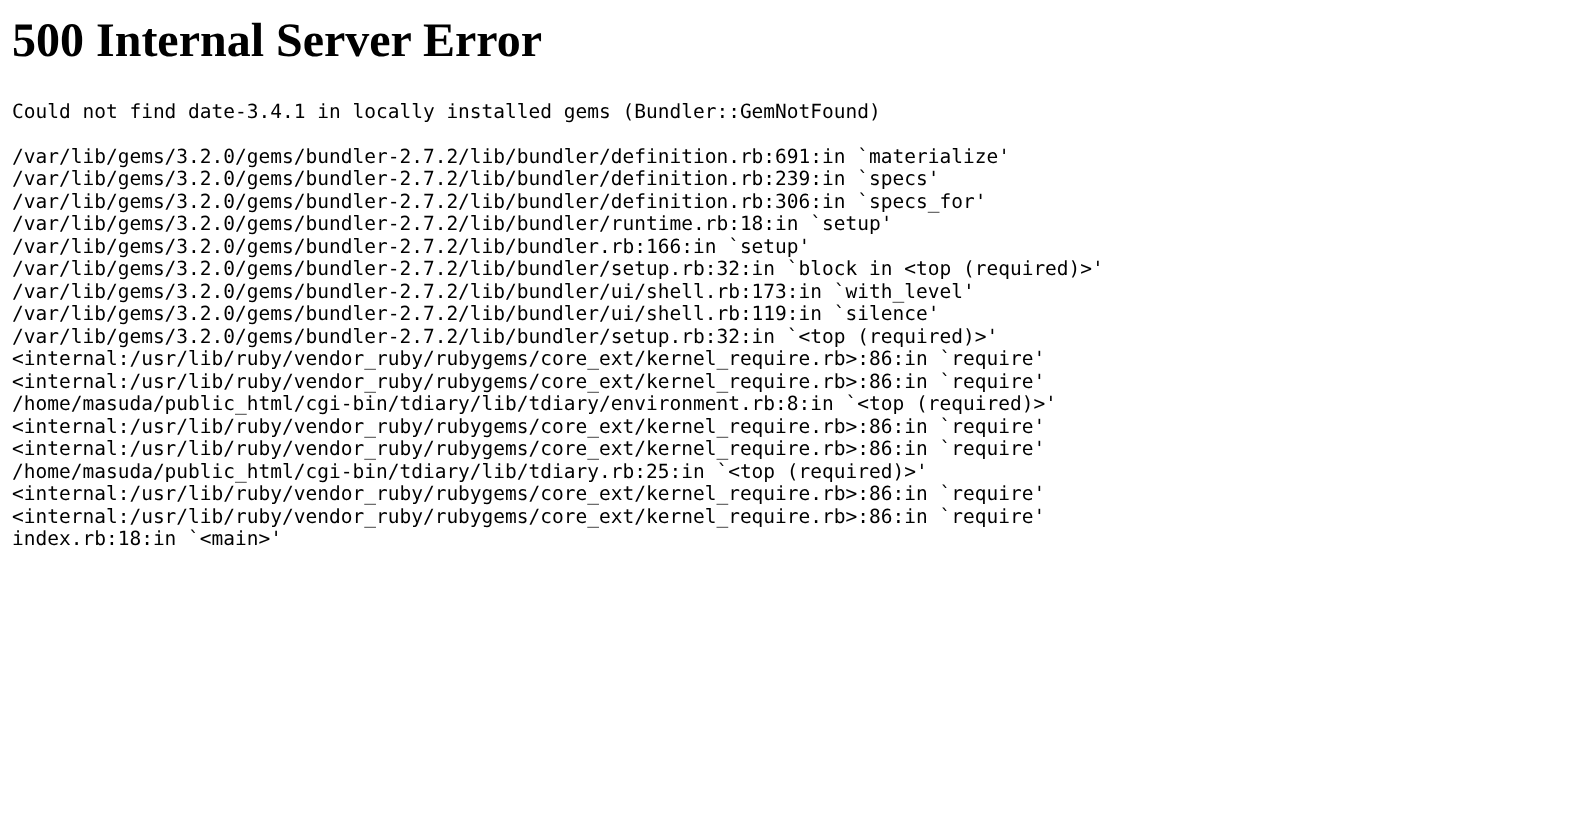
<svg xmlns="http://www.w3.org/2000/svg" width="1569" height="817">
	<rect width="100%" height="100%" fill="#FFFFFF" />
	<text x="12" y="56" font-family="Liberation Serif" font-size="48" font-weight="700" fill="#000000">500 Internal Server Error</text>
	<g font-family="DejaVu Sans Mono" font-size="19.5" fill="#000000">
		<text x="12" y="118">Could not find date-3.4.1 in locally installed gems (Bundler::GemNotFound)</text>
		<text x="12" y="163">/var/lib/gems/3.2.0/gems/bundler-2.7.2/lib/bundler/definition.rb:691:in `materialize'</text>
		<text x="12" y="185">/var/lib/gems/3.2.0/gems/bundler-2.7.2/lib/bundler/definition.rb:239:in `specs'</text>
		<text x="12" y="208">/var/lib/gems/3.2.0/gems/bundler-2.7.2/lib/bundler/definition.rb:306:in `specs_for'</text>
		<text x="12" y="230">/var/lib/gems/3.2.0/gems/bundler-2.7.2/lib/bundler/runtime.rb:18:in `setup'</text>
		<text x="12" y="253">/var/lib/gems/3.2.0/gems/bundler-2.7.2/lib/bundler.rb:166:in `setup'</text>
		<text x="12" y="275">/var/lib/gems/3.2.0/gems/bundler-2.7.2/lib/bundler/setup.rb:32:in `block in &lt;top (required)&gt;'</text>
		<text x="12" y="298">/var/lib/gems/3.2.0/gems/bundler-2.7.2/lib/bundler/ui/shell.rb:173:in `with_level'</text>
		<text x="12" y="320">/var/lib/gems/3.2.0/gems/bundler-2.7.2/lib/bundler/ui/shell.rb:119:in `silence'</text>
		<text x="12" y="343">/var/lib/gems/3.2.0/gems/bundler-2.7.2/lib/bundler/setup.rb:32:in `&lt;top (required)&gt;'</text>
		<text x="12" y="365">&lt;internal:/usr/lib/ruby/vendor_ruby/rubygems/core_ext/kernel_require.rb&gt;:86:in `require'</text>
		<text x="12" y="388">&lt;internal:/usr/lib/ruby/vendor_ruby/rubygems/core_ext/kernel_require.rb&gt;:86:in `require'</text>
		<text x="12" y="410">/home/masuda/public_html/cgi-bin/tdiary/lib/tdiary/environment.rb:8:in `&lt;top (required)&gt;'</text>
		<text x="12" y="433">&lt;internal:/usr/lib/ruby/vendor_ruby/rubygems/core_ext/kernel_require.rb&gt;:86:in `require'</text>
		<text x="12" y="455">&lt;internal:/usr/lib/ruby/vendor_ruby/rubygems/core_ext/kernel_require.rb&gt;:86:in `require'</text>
		<text x="12" y="478">/home/masuda/public_html/cgi-bin/tdiary/lib/tdiary.rb:25:in `&lt;top (required)&gt;'</text>
		<text x="12" y="500">&lt;internal:/usr/lib/ruby/vendor_ruby/rubygems/core_ext/kernel_require.rb&gt;:86:in `require'</text>
		<text x="12" y="523">&lt;internal:/usr/lib/ruby/vendor_ruby/rubygems/core_ext/kernel_require.rb&gt;:86:in `require'</text>
		<text x="12" y="545">index.rb:18:in `&lt;main&gt;'</text>
	</g>
</svg>
